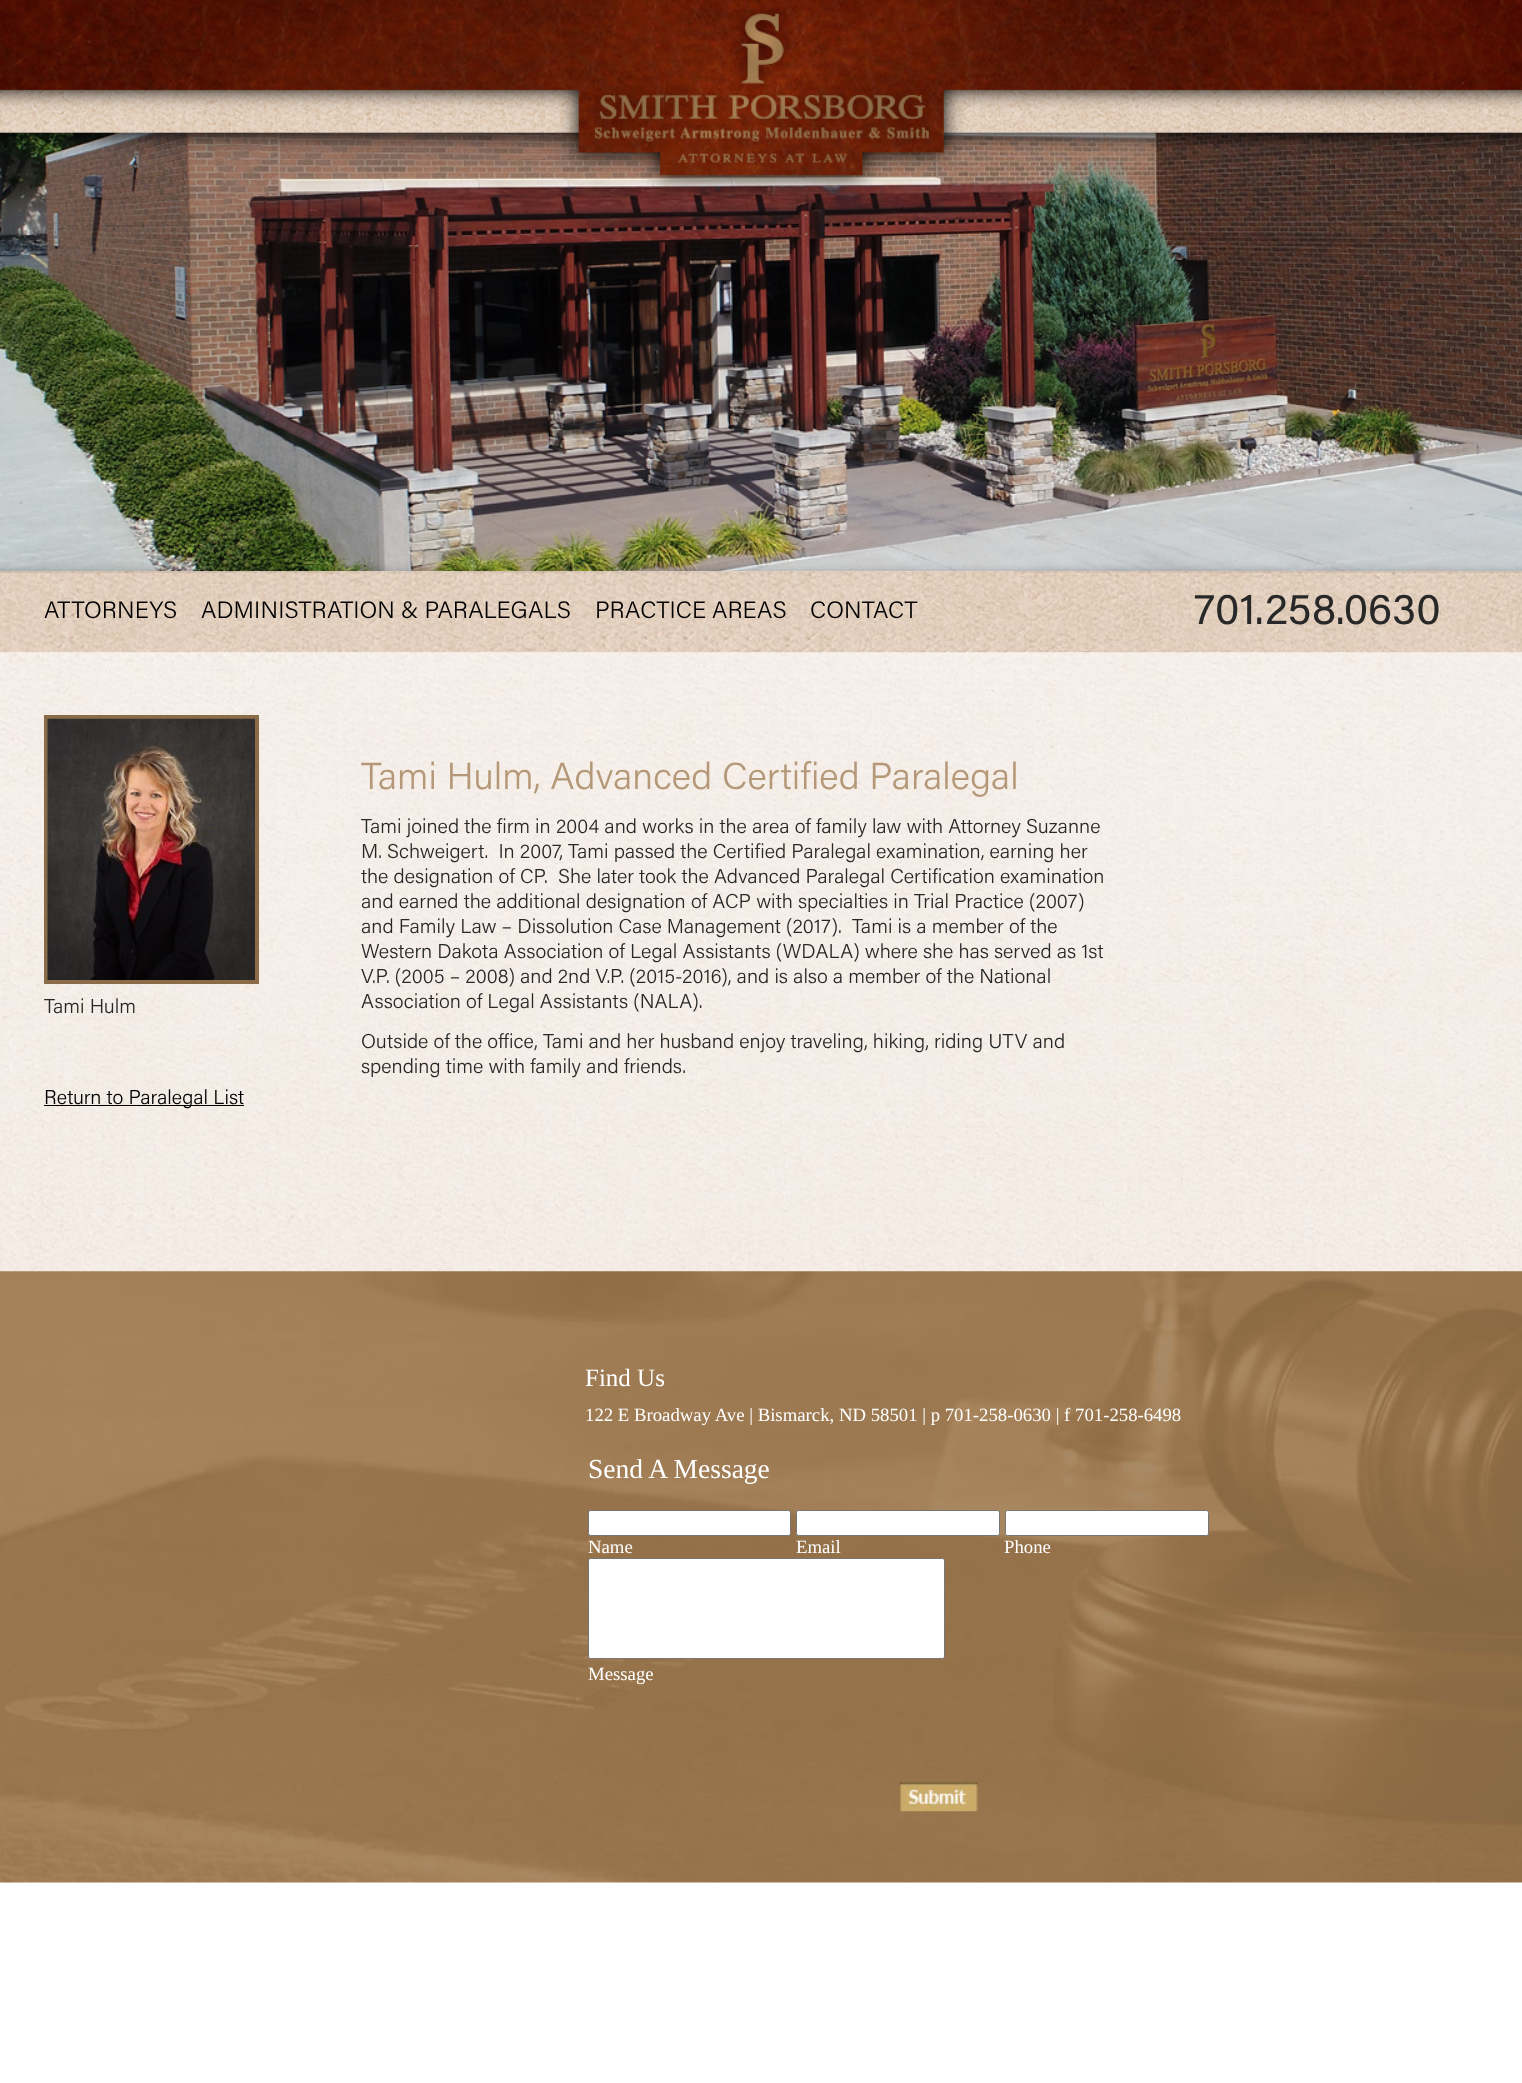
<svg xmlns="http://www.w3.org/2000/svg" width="1522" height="2083">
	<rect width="100%" height="100%" fill="#FFFFFF" />
	<image x="0" y="132" width="1522" height="440" href="assets/img3.png" />
	<image x="0" y="0" width="1522" height="192" href="assets/img1.png" />
	<image x="594" y="0" width="336" height="166" href="assets/img2.png" />
	<image x="0" y="571" width="1522" height="82" href="assets/img4.png" />
	<g font-family="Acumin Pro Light" font-size="23.75" font-weight="300" fill="#000000">
		<text x="44" y="618">ATTORNEYS</text>
		<text x="201" y="618">ADMINISTRATION &amp; PARALEGALS</text>
		<text x="595" y="618">PRACTICE AREAS</text>
		<text x="810" y="618">CONTACT</text>
	</g>
	<text x="1194" y="624" font-family="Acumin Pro" font-size="43.75" fill="#282828">701.258.0630</text>
	<image x="0" y="652" width="1522" height="620" href="assets/img5.png" />
	<rect x="46" y="717" width="211" height="265" fill="none" stroke="#8B6C48" stroke-width="4" />
	<image x="47" y="718" width="208" height="262" href="assets/img6.png" />
	<text x="44" y="1013" font-family="Acumin Pro Light" font-size="20" font-weight="300" fill="#282828">Tami Hulm</text>
	<rect x="44" y="1105" width="200" height="1" fill="#000000" />
	<text x="44" y="1104" font-family="Acumin Pro Light" font-size="20" font-weight="300" fill="#000000">Return to Paralegal List</text>
	<text x="361" y="789" font-family="Acumin Pro Light" font-size="37.5" font-weight="300" fill="#B49878">Tami Hulm, Advanced Certified Paralegal</text>
	<g font-family="Acumin Pro Light" font-size="20" font-weight="300" fill="#282828">
		<text x="361" y="833">Tami joined the firm in 2004 and works in the area of family law with Attorney Suzanne</text>
		<text x="361" y="858" xml:space="preserve">M. Schweigert.  In 2007, Tami passed the Certified Paralegal examination, earning her</text>
		<text x="361" y="883" xml:space="preserve">the designation of CP.  She later took the Advanced Paralegal Certification examination</text>
		<text x="361" y="908">and earned the additional designation of ACP with specialties in Trial Practice (2007)</text>
		<text x="361" y="933" xml:space="preserve">and Family Law – Dissolution Case Management (2017).  Tami is a member of the</text>
		<text x="361" y="958">Western Dakota Association of Legal Assistants (WDALA) where she has served as 1st</text>
		<text x="361" y="983">V.P. (2005 – 2008) and 2nd V.P. (2015-2016), and is also a member of the National</text>
		<text x="361" y="1008">Association of Legal Assistants (NALA).</text>
		<text x="361" y="1048">Outside of the office, Tami and her husband enjoy traveling, hiking, riding UTV and</text>
		<text x="361" y="1073">spending time with family and friends.</text>
	</g>
	<image x="0" y="1271" width="1522" height="612" href="assets/img7.png" />
	<text x="585" y="1386" font-family="Liberation Serif" font-size="25" fill="#FFFFFF">Find Us</text>
	<text x="585" y="1421" font-family="Liberation Serif" font-size="18.75" fill="#FFFFFF">122 E Broadway Ave | Bismarck, ND 58501 | p 701-258-0630 | f 701-258-6498</text>
	<text x="588" y="1478" font-family="Liberation Serif" font-size="27.5" fill="#FFFFFF">Send A Message</text>
	<rect x="588.5" y="1510.5" width="202" height="25" rx="2" fill="#FFFFFF" stroke="#767676" />
	<text x="588" y="1553" font-family="Liberation Serif" font-size="18.75" fill="#FFFFFF">Name</text>
	<rect x="796.5" y="1510.5" width="203" height="25" rx="2" fill="#FFFFFF" stroke="#767676" />
	<text x="796" y="1553" font-family="Liberation Serif" font-size="18.75" fill="#FFFFFF">Email</text>
	<rect x="1005.5" y="1510.5" width="203" height="25" rx="2" fill="#FFFFFF" stroke="#767676" />
	<text x="1004" y="1553" font-family="Liberation Serif" font-size="18.75" fill="#FFFFFF">Phone</text>
	<rect x="588.5" y="1558.5" width="356" height="100" rx="2" fill="#FFFFFF" stroke="#767676" />
	<text x="588" y="1680" font-family="Liberation Serif" font-size="18.75" fill="#FFFFFF">Message</text>
	<image x="900" y="1782" width="78" height="30" href="assets/img8.png" />
</svg>
